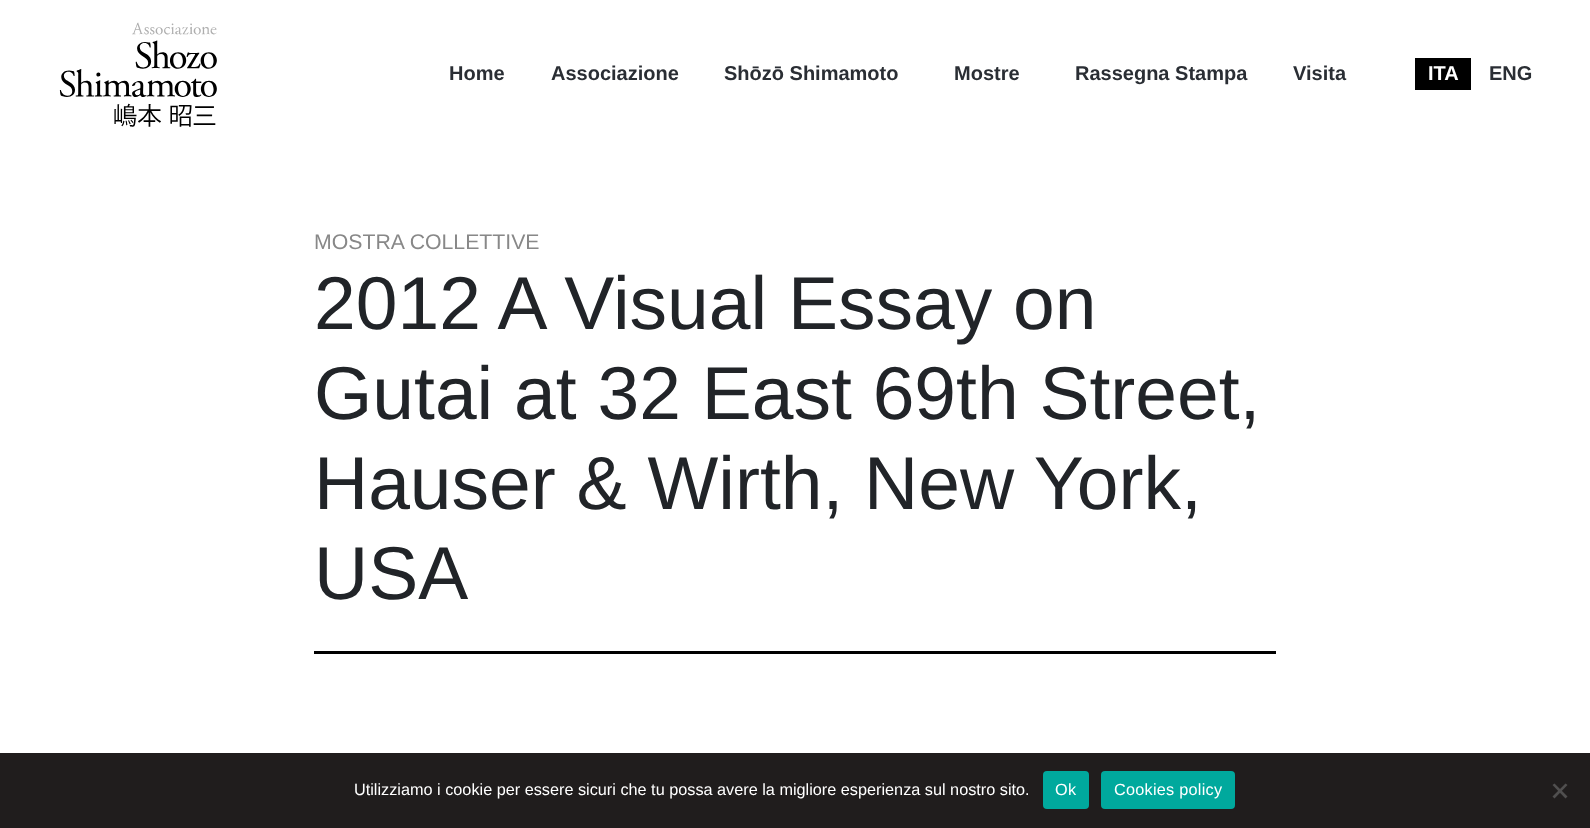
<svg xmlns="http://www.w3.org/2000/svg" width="1590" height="828">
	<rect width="100%" height="100%" fill="#FFFFFF" />
	<image x="59" y="22" width="158" height="105" href="assets/img1.png" />
	<g font-family="Liberation Sans" font-size="20" font-weight="700" fill="#2A2E34">
		<text x="449" y="80">Home</text>
		<text x="551" y="80">Associazione</text>
		<text x="724" y="80">Shōzō Shimamoto</text>
		<text x="954" y="80">Mostre</text>
		<text x="1075" y="80">Rassegna Stampa</text>
		<text x="1293" y="80">Visita</text>
	</g>
	<rect x="1415" y="58" width="56" height="32" fill="#000000" />
	<text x="1428" y="80" font-family="Liberation Sans" font-size="20" font-weight="700" fill="#FFFFFF">ITA</text>
	<text x="1489" y="80" font-family="Liberation Sans" font-size="20" font-weight="700" fill="#2A2E34">ENG</text>
	<rect x="314" y="651" width="962" height="3" fill="#000000" />
	<text x="314" y="249" font-family="Liberation Sans" font-size="21.25" fill="#888888">MOSTRA COLLETTIVE</text>
	<g font-family="Liberation Sans" font-size="75" fill="#212428">
		<text x="314" y="329">2012 A Visual Essay on</text>
		<text x="314" y="419">Gutai at 32 East 69th Street,</text>
		<text x="314" y="509">Hauser &amp; Wirth, New York,</text>
		<text x="314" y="599">USA</text>
	</g>
	<rect x="0" y="753" width="1590" height="75" fill="#201D1D" />
	<text x="354" y="795" font-family="Liberation Sans" font-size="16.25" fill="#FFFFFF">Utilizziamo i cookie per essere sicuri che tu possa avere la migliore esperienza sul nostro sito.</text>
	<rect x="1043" y="771" width="46" height="38" rx="4" fill="#00A99D" />
	<text x="1055" y="795" font-family="Liberation Sans" font-size="16.25" letter-spacing="0.25" fill="#FFFFFF">Ok</text>
	<rect x="1101" y="771" width="134" height="38" rx="4" fill="#00A99D" />
	<text x="1114" y="795" font-family="Liberation Sans" font-size="16.25" letter-spacing="0.25" fill="#FFFFFF">Cookies policy</text>
	<path d="M1565.5 783.5L1567.5 785L1554.5 798.5L1552.5 796.5Z" fill="#504F4F" />
	<path d="M1552.5 785L1554.5 783.5L1567.5 796.5L1565.5 798.5Z" fill="#504F4F" />
</svg>
